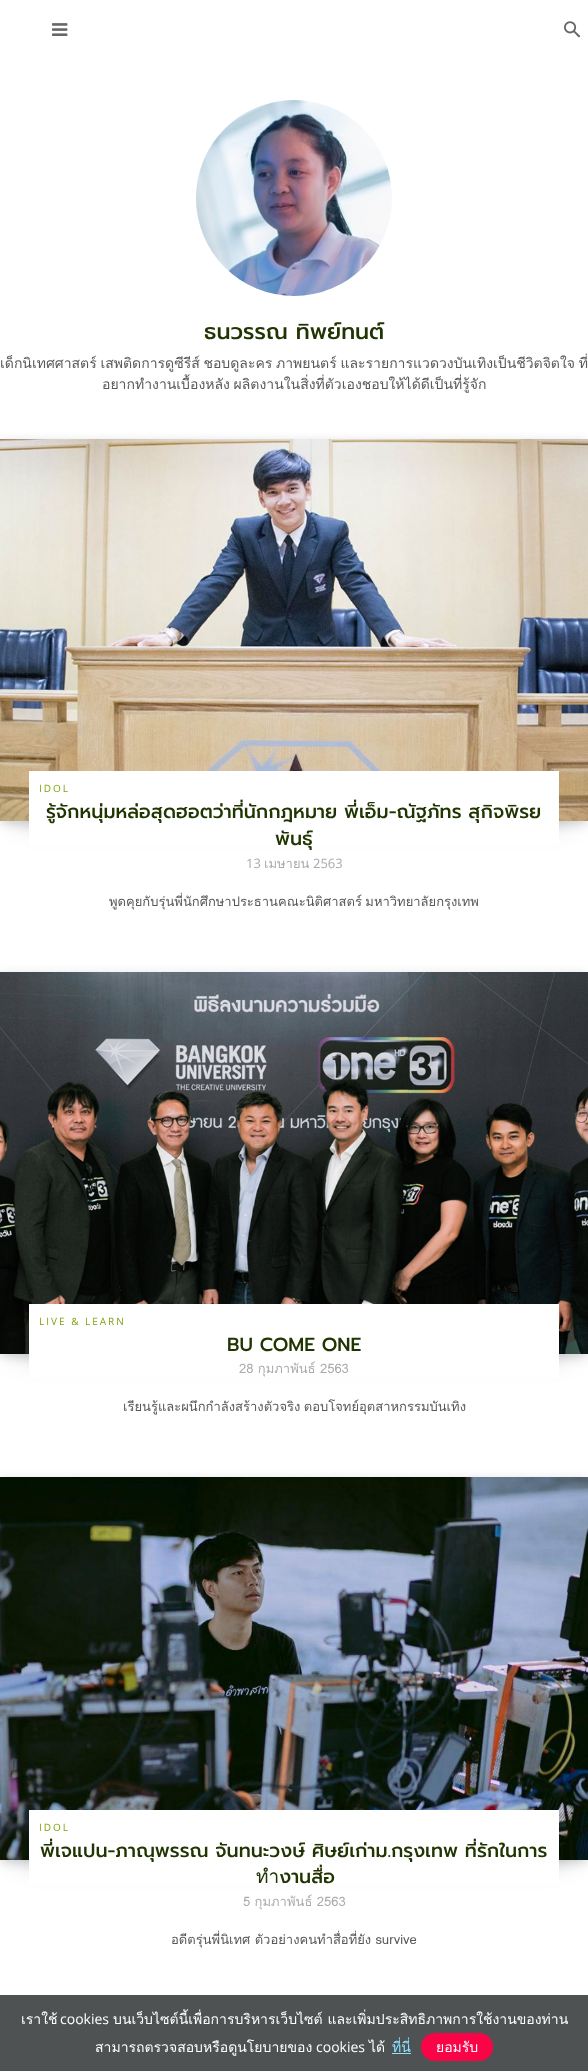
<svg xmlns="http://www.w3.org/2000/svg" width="588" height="2071">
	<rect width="100%" height="100%" fill="#FFFFFF" />
	<image x="52" y="23" width="16" height="13" href="assets/img1.png" />
	<image x="564" y="21" width="16" height="17" href="assets/img2.png" />
	<image x="196" y="100" width="196" height="196" href="assets/img3.png" />
	<text x="204" y="339" font-family="Prompt" font-size="22" font-weight="500" fill="#213502">ธนวรรณ ทิพย์ทนต์</text>
	<g font-family="Loma" font-size="14" fill="#585858">
		<text x="0" y="368" word-spacing="-1">เด็กนิเทศศาสตร์ เสพติดการดูซีรีส์ ชอบดูละคร ภาพยนตร์ และรายการแวดวงบันเทิงเป็นชีวิตจิตใจ ที่</text>
		<text x="102" y="389" word-spacing="-1">อยากทำงานเบื้องหลัง ผลิตงานในสิ่งที่ตัวเองชอบให้ได้ดีเป็นที่รู้จัก</text>
	</g>
	<rect x="20" y="481" width="548" height="342" fill="#070A19" fill-opacity="0.2" filter="blur(13.5px)" />
	<rect x="1" y="443" width="586" height="380" fill="#070A19" fill-opacity="0.2" filter="blur(6px)" />
	<image x="0" y="439" width="588" height="382" href="assets/img4.png" />
	<rect x="29" y="771" width="530" height="74" fill="#FFFFFF" />
	<text x="39" y="792" font-family="Open Sans" font-size="10" letter-spacing="2" fill="#7EA310">IDOL</text>
	<g font-family="Prompt" font-size="19" font-weight="500" fill="#213502">
		<text x="46" y="818">รู้จักหนุ่มหล่อสุดฮอตว่าที่นักกฎหมาย พี่เอ็ม-ณัฐภัทร สุกิจพิรย</text>
		<text x="275" y="845">พันธุ์</text>
	</g>
	<text x="246" y="868" font-family="Open Sans" font-size="13" fill="#ABABAB">13</text>
	<text x="264" y="868" font-family="Loma" font-size="13" fill="#ABABAB">เมษายน</text>
	<text x="313" y="868" font-family="Open Sans" font-size="13" fill="#ABABAB">2563</text>
	<text x="109" y="906" word-spacing="-1" font-family="Loma" font-size="13" fill="#585858">พูดคุยกับรุ่นพี่นักศึกษาประธานคณะนิติศาสตร์ มหาวิทยาลัยกรุงเทพ</text>
	<rect x="20" y="1014" width="548" height="342" fill="#070A19" fill-opacity="0.2" filter="blur(13.5px)" />
	<rect x="1" y="976" width="586" height="380" fill="#070A19" fill-opacity="0.2" filter="blur(6px)" />
	<image x="0" y="972" width="588" height="382" href="assets/img5.png" />
	<rect x="29" y="1304" width="530" height="74" fill="#FFFFFF" />
	<text x="39" y="1325" font-family="Open Sans" font-size="10" letter-spacing="2" fill="#7EA310">LIVE &amp; LEARN</text>
	<text x="227" y="1351" font-family="Prompt" font-size="19" font-weight="500" fill="#213502">BU COME ONE</text>
	<text x="239" y="1373" font-family="Loma" font-size="13" fill="#ABABAB">28 กุมภาพันธ์ 2563</text>
	<text x="123" y="1411" word-spacing="-1" font-family="Loma" font-size="13" fill="#585858">เรียนรู้และผนึกกำลังสร้างตัวจริง ตอบโจทย์อุตสาหกรรมบันเทิง</text>
	<rect x="20" y="1519" width="548" height="343" fill="#070A19" fill-opacity="0.2" filter="blur(13.5px)" />
	<rect x="1" y="1481" width="586" height="381" fill="#070A19" fill-opacity="0.2" filter="blur(6px)" />
	<image x="0" y="1477" width="588" height="383" href="assets/img6.png" />
	<rect x="29" y="1810" width="530" height="74" fill="#FFFFFF" />
	<text x="39" y="1831" font-family="Open Sans" font-size="10" letter-spacing="2" fill="#7EA310">IDOL</text>
	<g font-family="Prompt" font-size="19" font-weight="500" fill="#213502">
		<text x="40" y="1857">พี่เจแปน-ภาณุพรรณ จันทนะวงษ์ ศิษย์เก่าม.กรุงเทพ ที่รักในการ</text>
		<text x="256" y="1883">ทำงานสื่อ</text>
	</g>
	<text x="243" y="1906" font-family="Loma" font-size="13" fill="#ABABAB">5 กุมภาพันธ์ 2563</text>
	<text x="171" y="1944" font-family="Loma" font-size="13" fill="#585858">อดีตรุ่นพี่นิเทศ ตัวอย่างคนทำสื่อที่ยัง survive</text>
	<rect x="0" y="1995" width="588" height="76" fill="#4E5253" />
	<text x="21" y="2024" font-family="Loma" font-size="14" fill="#FFFFFF">เราใช้</text>
	<text x="60" y="2024" font-family="Open Sans" font-size="14" fill="#FFFFFF">cookies</text>
	<g font-family="Loma" font-size="14" fill="#FFFFFF">
		<text x="113" y="2024">บนเว็บไซต์นี้เพื่อการบริหารเว็บไซต์ และเพิ่มประสิทธิภาพการใช้งานของท่าน</text>
		<text x="95" y="2052">สามารถตรวจสอบหรือดูนโยบายของ</text>
	</g>
	<text x="316" y="2052" font-family="Open Sans" font-size="14" fill="#FFFFFF">cookies</text>
	<text x="369" y="2052" font-family="Loma" font-size="14" fill="#FFFFFF">ได้</text>
	<text x="392" y="2052" font-family="Loma" font-size="14" fill="#8CE0FF">ที่นี่</text>
	<rect x="392" y="2053" width="19" height="1" fill="#8CE0FF" />
	<rect x="421" y="2033" width="72" height="28" rx="14" fill="#F90446" />
	<text x="436" y="2052" font-family="Loma" font-size="14" fill="#FFFFFF">ยอมรับ</text>
</svg>
